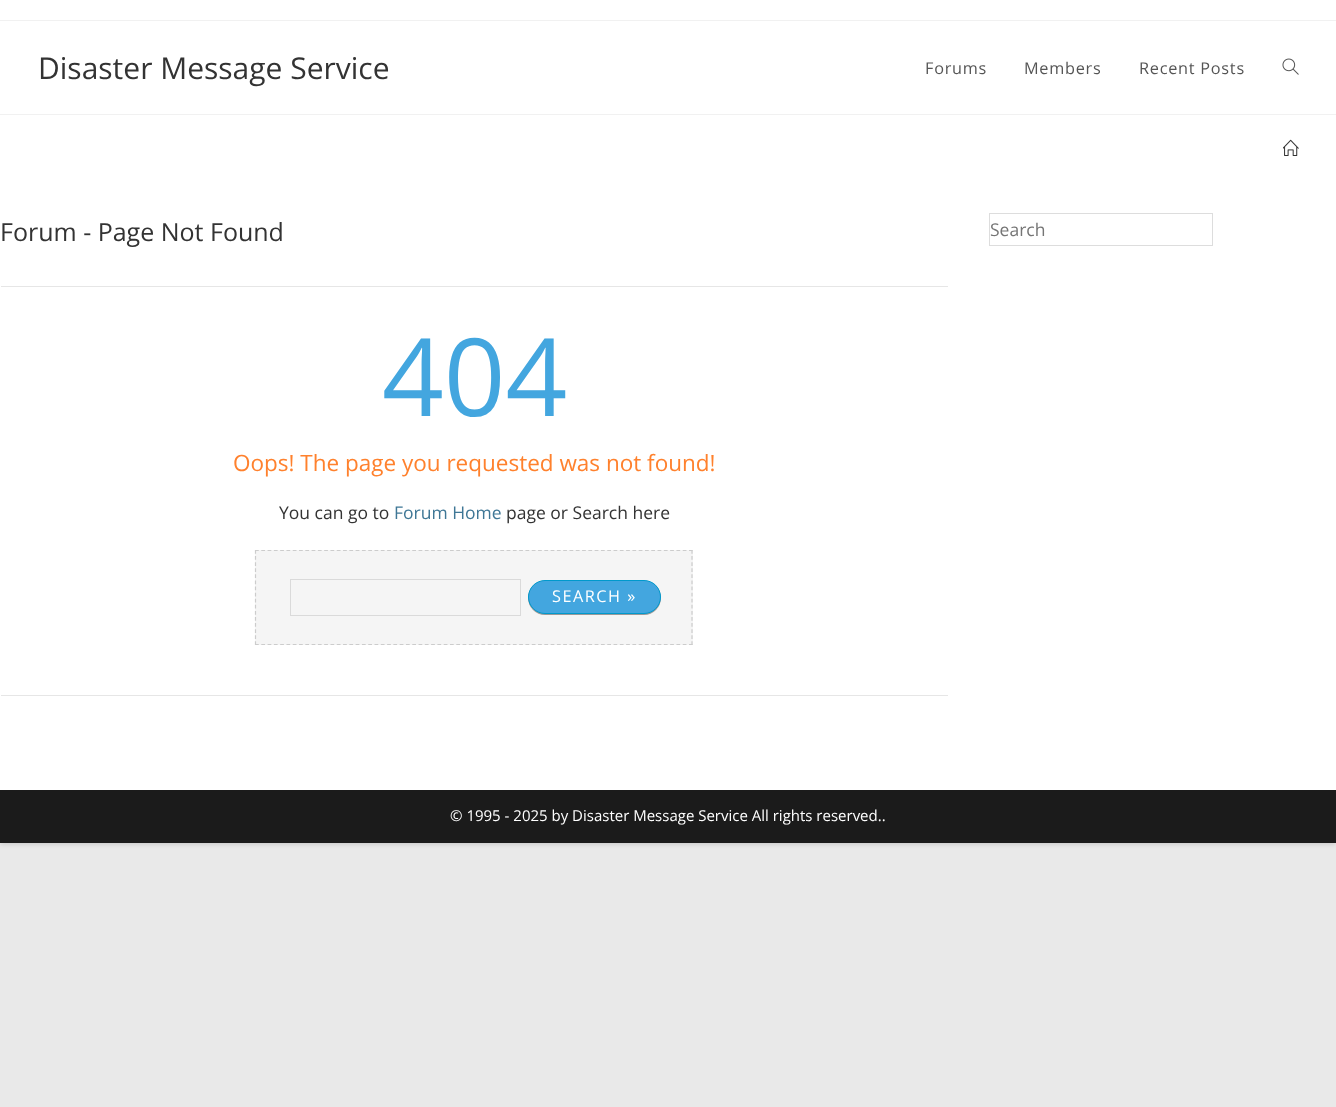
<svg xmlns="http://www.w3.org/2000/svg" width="1336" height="1107">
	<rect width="100%" height="100%" fill="#E9E9E9" />
	<rect x="0" y="1" width="1336" height="843" fill="#000000" fill-opacity="0.15" filter="blur(2.5px)" />
	<rect x="0" y="0" width="1336" height="790" fill="#FFFFFF" />
	<rect x="0" y="20" width="1336" height="1" fill="#F1F1F1" />
	<rect x="0" y="114" width="1336" height="1" fill="#F1F1F1" />
	<text x="38" y="79" font-family="Open Sans" font-size="30" fill="#333333">Disaster Message Service</text>
	<g font-family="Open Sans" font-size="16.25" letter-spacing="0.75" fill="#555555">
		<text x="925" y="74">Forums</text>
		<text x="1024" y="74">Members</text>
		<text x="1139" y="74">Recent Posts</text>
	</g>
	<image x="1282" y="58" width="17" height="17" href="assets/img1.png" />
	<image x="1283" y="139" width="16" height="17" href="assets/img2.png" />
	<text x="0" y="241" font-family="Open Sans" font-size="25" fill="#333333">Forum - Page Not Found</text>
	<rect x="1" y="286" width="947" height="1" fill="#E6E6E6" />
	<rect x="1" y="695" width="947" height="1" fill="#E6E6E6" />
	<text x="382" y="416" font-family="Open Sans" font-size="108" fill="#43A6DF">404</text>
	<text x="233" y="471" font-family="Open Sans" font-size="22.5" fill="#FF812D">Oops! The page you requested was not found!</text>
	<text x="279" y="519" font-family="Open Sans" font-size="17.5" fill="#333333">You can go to</text>
	<text x="394" y="519" font-family="Open Sans" font-size="17.5" fill="#3F7796">Forum Home</text>
	<text x="506" y="519" font-family="Open Sans" font-size="17.5" fill="#333333">page or Search here</text>
	<rect x="255" y="550" width="438" height="95" fill="#F5F5F5" />
	<path d="M255 550.5H692.5" fill="none" stroke="#CCCCCC" stroke-width="1.2" stroke-dasharray="3.75 2.54" />
	<path d="M692 550V645" fill="none" stroke="#CCCCCC" stroke-width="1.2" stroke-dasharray="3.75 2.34" />
	<path d="M255 644.5H692.5" fill="none" stroke="#CCCCCC" stroke-width="1.2" stroke-dasharray="3.75 2.54" />
	<path d="M255.5 550V645" fill="none" stroke="#CCCCCC" stroke-width="1.2" stroke-dasharray="3.75 2.34" />
	<rect x="290.5" y="579.5" width="230" height="36" fill="none" stroke="#DADADA" />
	<rect x="528" y="581" width="133" height="34" rx="17" fill="#999999" filter="blur(0.5px)" />
	<rect x="528.5" y="580.5" width="132" height="33" rx="16.5" fill="#43A6DF" stroke="#0099CC" />
	<text x="552" y="602" font-family="Open Sans" font-size="16.25" letter-spacing="1.5" fill="#FFFFFF">SEARCH »</text>
	<rect x="989.5" y="213.5" width="223" height="32" fill="none" stroke="#DDDDDD" />
	<text x="990" y="236" font-family="Open Sans" font-size="17.5" fill="#757575">Search</text>
	<rect x="0" y="790" width="1336" height="53" fill="#1B1B1B" />
	<text x="450" y="821" font-family="Open Sans" font-size="15" fill="#FFFFFF">© 1995 - 2025 by Disaster Message Service All rights reserved..</text>
</svg>
